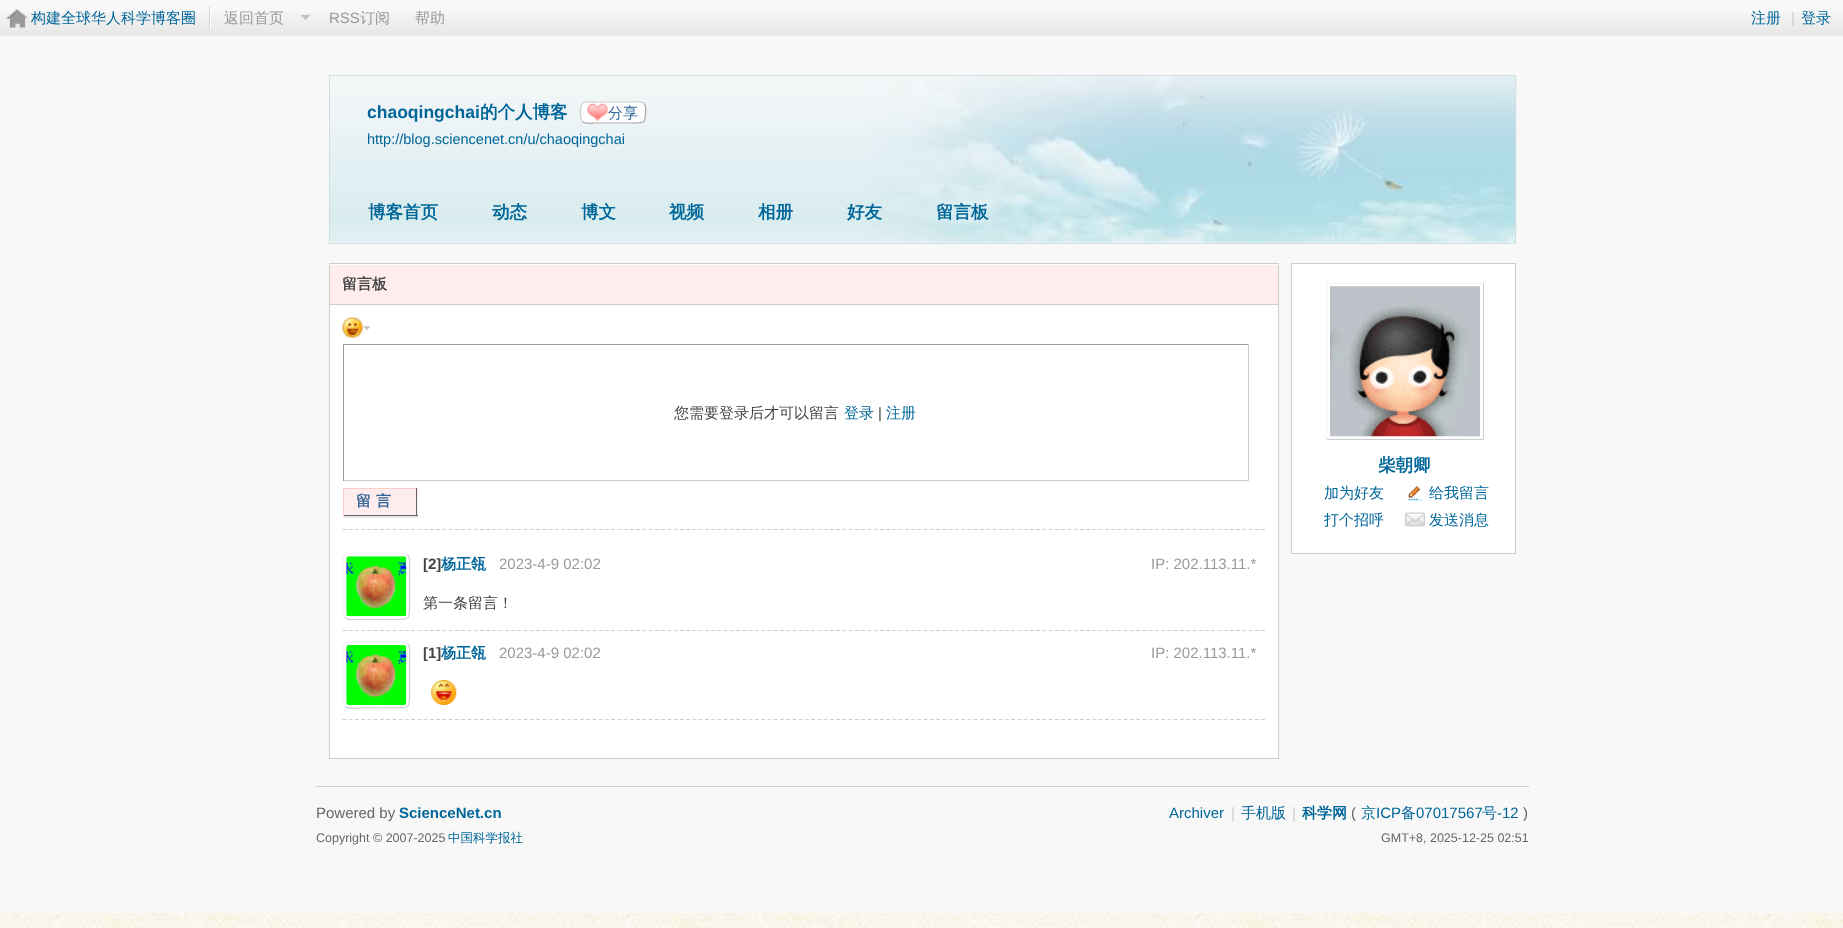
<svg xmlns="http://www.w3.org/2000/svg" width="1843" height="928">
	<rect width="100%" height="100%" fill="#FFFFFF" />
	<image x="0" y="913" width="1843" height="15" href="assets/img1.png" />
	<rect x="0" y="0" width="1843" height="913" fill="#F8F8F8" />
	<image x="0" y="13" width="1843" height="23" href="assets/img2.png" />
	<image x="6" y="8" width="22" height="20" href="assets/img3.png" />
	<rect x="210" y="6" width="1" height="23" fill="#FFFFFF" />
	<rect x="209" y="6" width="1" height="23" fill="#D5D5D5" />
	<text x="31" y="23" font-family="WenQuanYi Zen Hei" font-size="15" font-weight="500" fill="#006699">构建全球华人科学博客圈</text>
	<text x="224" y="23" font-family="WenQuanYi Zen Hei" font-size="15" font-weight="500" fill="#999999">返回首页</text>
	<image x="301" y="15" width="10" height="5" href="assets/img4.png" />
	<text x="329" y="23" font-family="Liberation Sans" font-size="15" fill="#999999">RSS</text>
	<g font-family="WenQuanYi Zen Hei" font-size="15" font-weight="500" fill="#999999">
		<text x="360" y="23">订阅</text>
		<text x="415" y="23">帮助</text>
	</g>
	<text x="1751" y="23" font-family="WenQuanYi Zen Hei" font-size="15" font-weight="500" fill="#006699">注册</text>
	<text x="1791" y="23" font-family="Liberation Sans" font-size="15" fill="#CCCCCC">|</text>
	<text x="1801" y="23" font-family="WenQuanYi Zen Hei" font-size="15" font-weight="500" fill="#006699">登录</text>
	<image x="328" y="76" width="1189" height="167" href="assets/img5.png" />
	<rect x="329.5" y="75.5" width="1186" height="168" fill="none" stroke="#D3DFDF" />
	<text x="367" y="118" font-family="Liberation Sans" font-size="17.5" font-weight="700" fill="#006699">chaoqingchai</text>
	<text x="480" y="118" font-family="WenQuanYi Zen Hei" font-size="17.5" font-weight="700" fill="#006699">的个人博客</text>
	<rect x="580" y="101" width="66" height="23" rx="6" fill="#FFFFFF" />
	<image x="587" y="103" width="21" height="19" href="assets/img6.png" />
	<path d="M644 103.5C646.5 106 645.5 109.5 645.5 112.5C645.5 124.5 643.5 123 631 123H595C592.5 123 585.5 124.5 582.5 121.5" fill="none" stroke="#A9A9A9" stroke-width="1.2" />
	<path d="M582.5 121.5C580 119 580.5 115.5 580.5 112.5C580.5 100.5 583 102 595 102H631C634 102 641 100.5 644 103.5" fill="none" stroke="#CCCCCC" stroke-width="1.2" />
	<text x="608" y="118" font-family="WenQuanYi Zen Hei" font-size="15" font-weight="500" fill="#336699">分享</text>
	<text x="367" y="144" font-family="Liberation Sans" font-size="14.5" fill="#006699">http://blog.sciencenet.cn/u/chaoqingchai</text>
	<g font-family="WenQuanYi Zen Hei" font-size="17.5" font-weight="700" fill="#006699">
		<text x="368" y="218">博客首页</text>
		<text x="492" y="218">动态</text>
		<text x="581" y="218">博文</text>
		<text x="669" y="218">视频</text>
		<text x="758" y="218">相册</text>
		<text x="847" y="218">好友</text>
		<text x="936" y="218">留言板</text>
	</g>
	<rect x="330" y="305" width="948" height="453" fill="#FFFFFF" />
	<rect x="329.5" y="263.5" width="949" height="495" fill="none" stroke="#CDCDCD" />
	<rect x="330" y="265" width="948" height="39" fill="#FFECEC" />
	<rect x="330" y="264" width="948" height="1" fill="#FFFFFF" />
	<rect x="330" y="304" width="948" height="1" fill="#CDCDCD" />
	<text x="342" y="289" font-family="WenQuanYi Zen Hei" font-size="15" font-weight="700" fill="#444444">留言板</text>
	<image x="342" y="317" width="28" height="21" href="assets/img7.png" />
	<rect x="343" y="344" width="906" height="1" fill="#999999" />
	<rect x="1248" y="344" width="1" height="137" fill="#CCCCCC" />
	<rect x="343" y="480" width="906" height="1" fill="#CCCCCC" />
	<rect x="343" y="344" width="1" height="137" fill="#999999" />
	<text x="674" y="418" font-family="WenQuanYi Zen Hei" font-size="15" font-weight="500" fill="#444444">您需要登录后才可以留言</text>
	<text x="844" y="418" font-family="WenQuanYi Zen Hei" font-size="15" font-weight="500" fill="#006699">登录</text>
	<text x="878" y="418" font-family="Liberation Sans" font-size="15" fill="#444444">|</text>
	<text x="886" y="418" font-family="WenQuanYi Zen Hei" font-size="15" font-weight="500" fill="#006699">注册</text>
	<path d="M343 516V518H418V489V516Z" fill="#E5E5E5" />
	<rect x="344" y="489" width="74" height="26" fill="#FFECEC" />
	<rect x="343" y="488" width="75" height="1" fill="#FFCCCC" />
	<rect x="416" y="488" width="1" height="28" fill="#666666" />
	<rect x="343" y="515" width="75" height="1" fill="#666666" />
	<rect x="343" y="488" width="1" height="28" fill="#FFCCCC" />
	<text x="356" y="506" font-family="WenQuanYi Zen Hei" font-size="15" font-weight="700" letter-spacing="5" fill="#336699">留言</text>
	<path d="M342.5 529.5H1265" fill="none" stroke="#CDCDCD" stroke-width="1.2" stroke-dasharray="3.75 2.5" />
	<path d="M342.5 630.5H1265" fill="none" stroke="#CDCDCD" stroke-width="1.2" stroke-dasharray="3.75 2.5" />
	<path d="M407.5 555C411 558 409.5 565 409.5 568V604.5C409.5 620 410 619.5 394.5 619.5H358C355 619.5 348 621 345 617.5" fill="none" stroke="#CDCDCD" stroke-width="1.2" />
	<path d="M345 617.5C341.5 614.5 343 607.5 343 604.5V568C343 552.5 342.5 553 358 553H394.5C397.5 553 404.5 551.5 407.5 555" fill="none" stroke="#F2F2F2" stroke-width="1.2" />
	<image x="346" y="556" width="61" height="61" href="assets/img8.png" />
	<text x="423" y="569" font-family="Liberation Sans" font-size="15" font-weight="700" fill="#444444">[2]</text>
	<text x="441" y="569" font-family="WenQuanYi Zen Hei" font-size="15" font-weight="700" fill="#006699">杨正瓴</text>
	<g font-family="Liberation Sans" font-size="15" fill="#999999">
		<text x="499" y="569">2023-4-9 02:02</text>
		<text x="1151" y="569">IP: 202.113.11.*</text>
	</g>
	<text x="423" y="608" font-family="WenQuanYi Zen Hei" font-size="15" font-weight="500" fill="#444444">第一条留言！</text>
	<path d="M342.5 719.5H1265" fill="none" stroke="#CDCDCD" stroke-width="1.2" stroke-dasharray="3.75 2.5" />
	<path d="M407.5 643.5C411 646.5 409.5 654 409.5 656.5V693.5C409.5 708.5 410 708 394.5 708H358C355 708 348 709.5 345 706.5" fill="none" stroke="#CDCDCD" stroke-width="1.2" />
	<path d="M345 706.5C341.5 703.5 343 696 343 693.5V656.5C343 641.5 342.5 642 358 642H394.5C397.5 642 404.5 640.5 407.5 643.5" fill="none" stroke="#F2F2F2" stroke-width="1.2" />
	<image x="346" y="645" width="61" height="60" href="assets/img9.png" />
	<text x="423" y="658" font-family="Liberation Sans" font-size="15" font-weight="700" fill="#444444">[1]</text>
	<text x="441" y="658" font-family="WenQuanYi Zen Hei" font-size="15" font-weight="700" fill="#006699">杨正瓴</text>
	<g font-family="Liberation Sans" font-size="15" fill="#999999">
		<text x="499" y="658">2023-4-9 02:02</text>
		<text x="1151" y="658">IP: 202.113.11.*</text>
	</g>
	<image x="431" y="680" width="26" height="25" href="assets/img10.png" />
	<rect x="1291.5" y="263.5" width="224" height="290" fill="#FFFFFF" stroke="#CDCDCD" />
	<rect x="1326" y="283" width="158" height="1" fill="#F2F2F2" />
	<rect x="1483" y="283" width="1" height="157" fill="#CDCDCD" />
	<rect x="1326" y="439" width="158" height="1" fill="#CDCDCD" />
	<rect x="1326" y="283" width="1" height="157" fill="#F2F2F2" />
	<image x="1330" y="286" width="150" height="151" href="assets/img11.png" />
	<text x="1378" y="471" font-family="WenQuanYi Zen Hei" font-size="17.5" font-weight="700" fill="#006699">柴朝卿</text>
	<text x="1324" y="498" font-family="WenQuanYi Zen Hei" font-size="15" font-weight="500" fill="#006699">加为好友</text>
	<image x="1408" y="486" width="15" height="16" href="assets/img12.png" />
	<g font-family="WenQuanYi Zen Hei" font-size="15" font-weight="500" fill="#006699">
		<text x="1429" y="498">给我留言</text>
		<text x="1324" y="525">打个招呼</text>
	</g>
	<image x="1405" y="512" width="20" height="15" href="assets/img13.png" />
	<text x="1429" y="525" font-family="WenQuanYi Zen Hei" font-size="15" font-weight="500" fill="#006699">发送消息</text>
	<rect x="316" y="786" width="1213" height="1" fill="#CCCCCC" />
	<text x="316" y="818" font-family="Liberation Sans" font-size="15" fill="#666666">Powered by</text>
	<text x="399" y="818" font-family="Liberation Sans" font-size="15" font-weight="700" fill="#006699">ScienceNet.cn</text>
	<text x="316" y="842" font-family="Liberation Sans" font-size="12.5" fill="#666666">Copyright © 2007-2025</text>
	<text x="448" y="842" font-family="WenQuanYi Zen Hei" font-size="12.5" font-weight="500" fill="#006699">中国科学报社</text>
	<text x="1169" y="818" font-family="Liberation Sans" font-size="15" fill="#006699">Archiver</text>
	<text x="1231" y="818" font-family="Liberation Sans" font-size="15" fill="#CCCCCC">|</text>
	<text x="1241" y="818" font-family="WenQuanYi Zen Hei" font-size="15" font-weight="500" fill="#006699">手机版</text>
	<text x="1292" y="818" font-family="Liberation Sans" font-size="15" fill="#CCCCCC">|</text>
	<text x="1302" y="818" font-family="WenQuanYi Zen Hei" font-size="15" font-weight="700" fill="#006699">科学网</text>
	<text x="1351" y="818" font-family="Liberation Sans" font-size="15" fill="#666666">(</text>
	<text x="1361" y="818" font-family="WenQuanYi Zen Hei" font-size="15" font-weight="500" fill="#006699">京</text>
	<text x="1376" y="818" font-family="Liberation Sans" font-size="15" fill="#006699">ICP</text>
	<text x="1401" y="818" font-family="WenQuanYi Zen Hei" font-size="15" font-weight="500" fill="#006699">备</text>
	<text x="1416" y="818" font-family="Liberation Sans" font-size="15" fill="#006699">07017567</text>
	<text x="1482" y="818" font-family="WenQuanYi Zen Hei" font-size="15" font-weight="500" fill="#006699">号</text>
	<text x="1497" y="818" font-family="Liberation Sans" font-size="15" fill="#006699">-12</text>
	<text x="1523" y="818" font-family="Liberation Sans" font-size="15" fill="#666666">)</text>
	<text x="1381" y="842" font-family="Liberation Sans" font-size="12.5" fill="#666666">GMT+8, 2025-12-25 02:51</text>
</svg>
